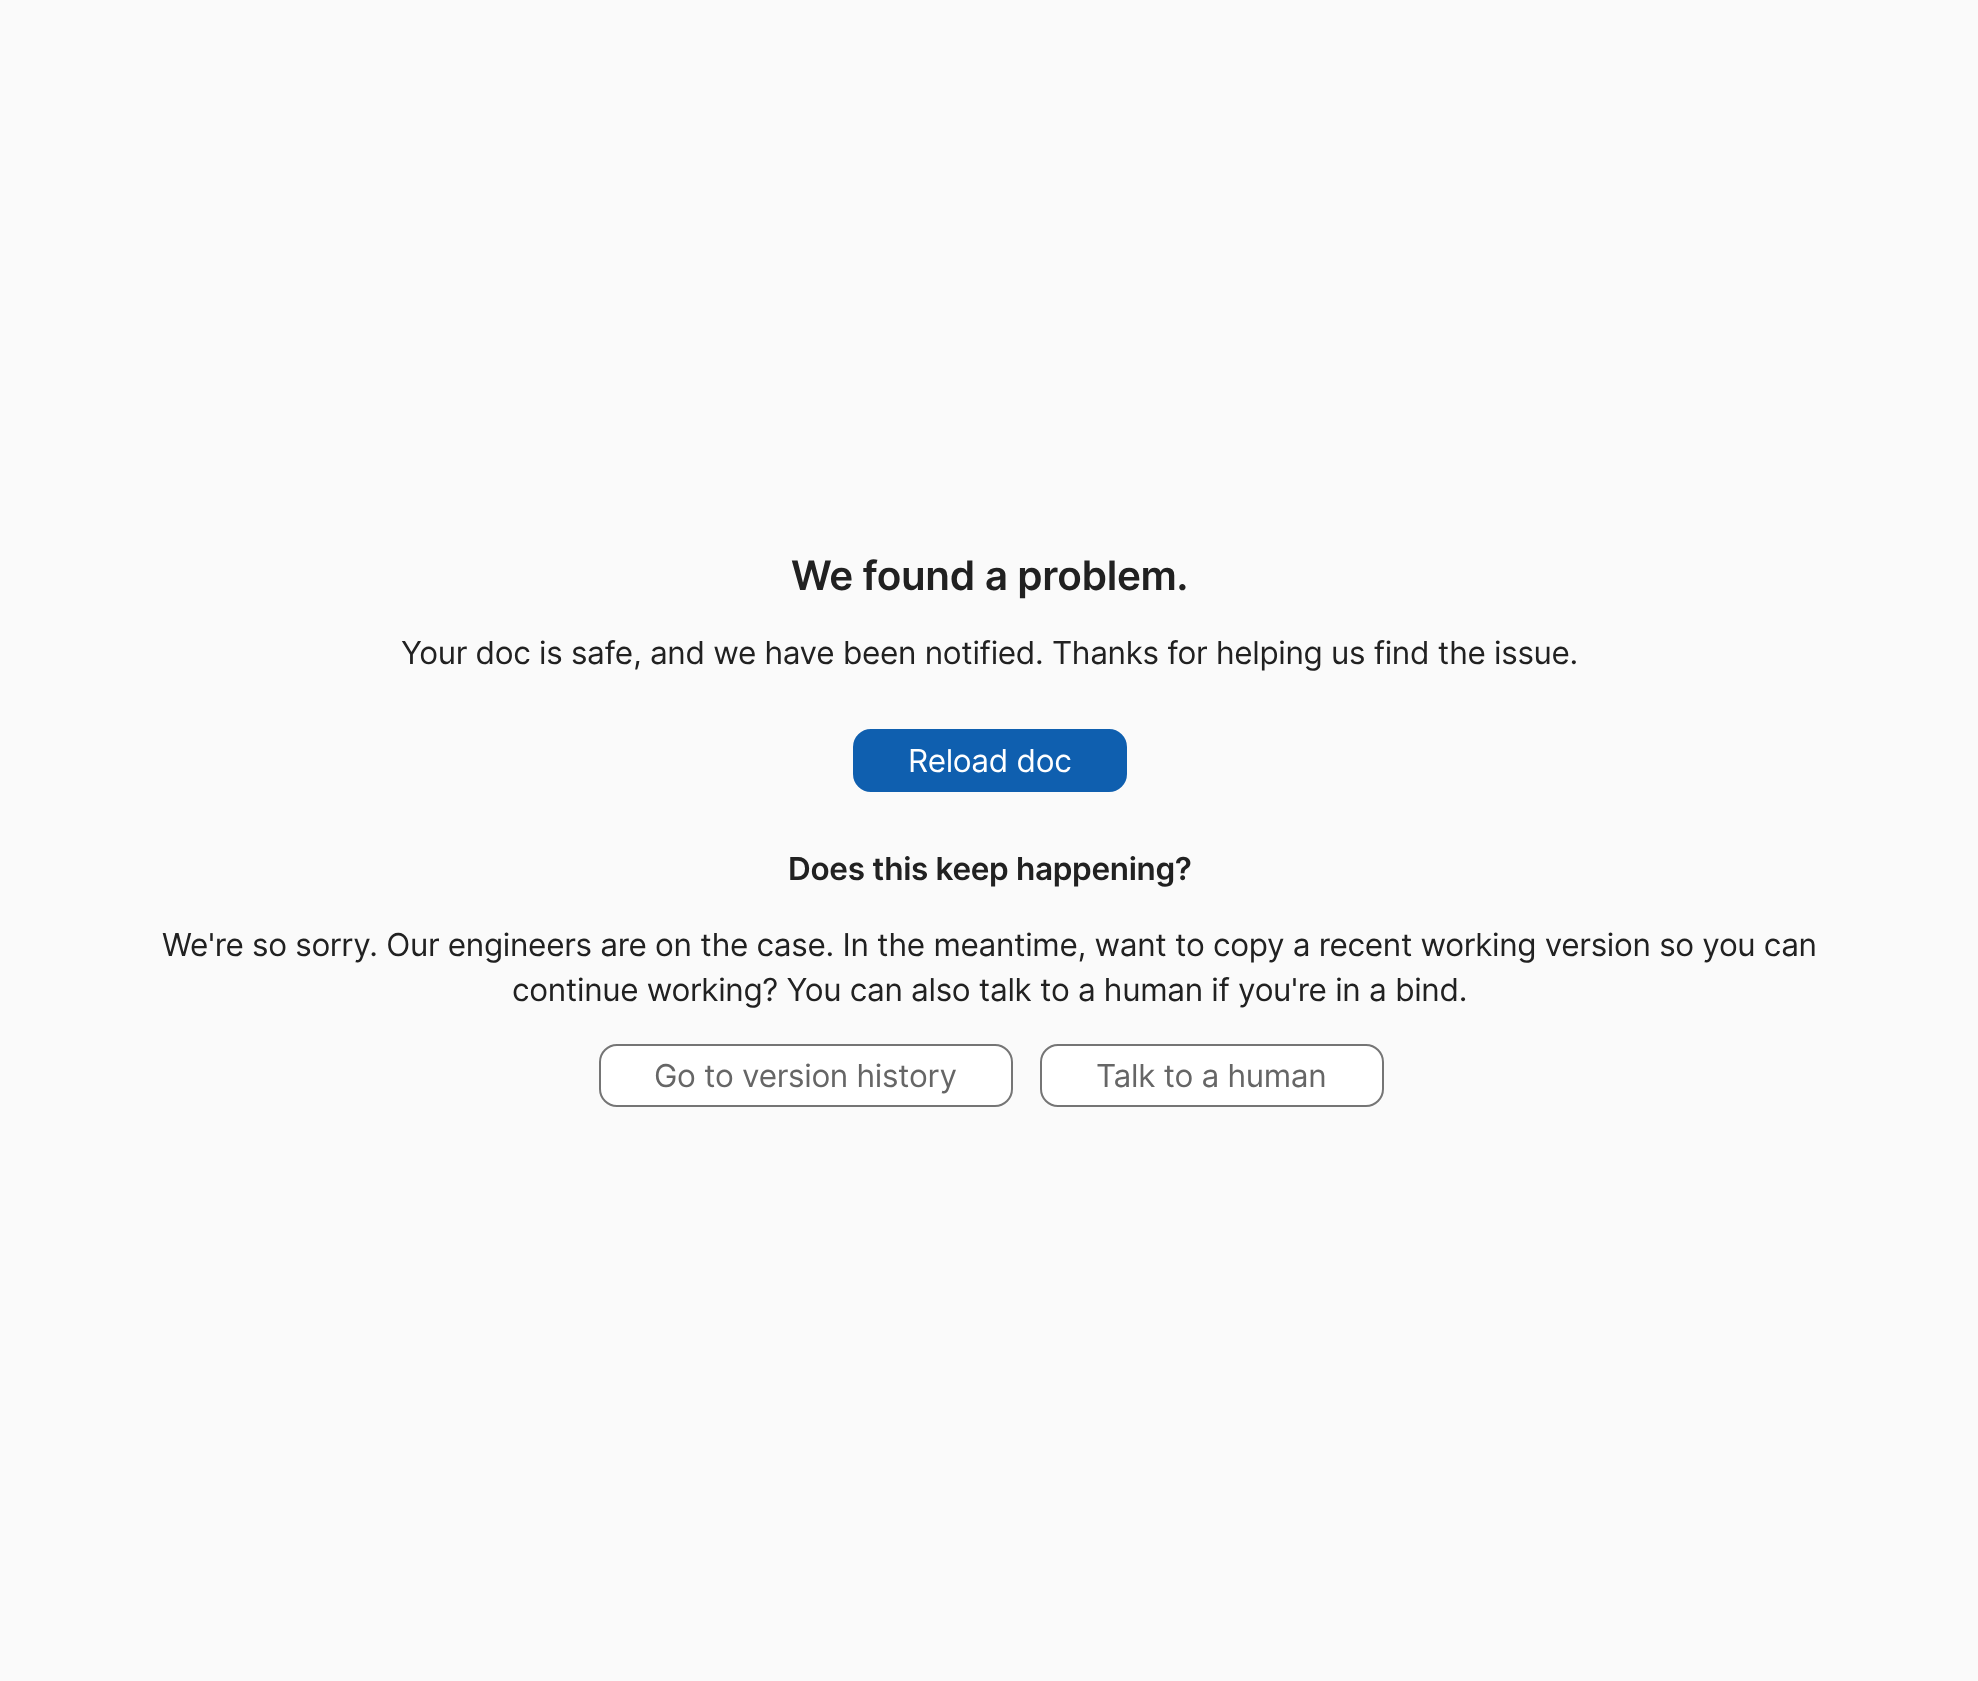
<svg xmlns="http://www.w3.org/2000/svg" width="1978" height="1681">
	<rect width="100%" height="100%" fill="#FAFAFA" />
	<text x="791" y="590" font-family="Inter" font-size="40.5" font-weight="600" letter-spacing="-0.32" fill="#212121">We found a problem.</text>
	<text x="401" y="664" font-family="Inter" font-size="31.5" letter-spacing="-0.32" fill="#212121">Your doc is safe, and we have been notified. Thanks for helping us find the issue.</text>
	<rect x="854" y="730" width="272" height="61" rx="17" fill="#0F5FAF" stroke="#0F5FAF" stroke-width="2" />
	<text x="908" y="772" font-family="Inter" font-size="31.5" letter-spacing="-0.32" fill="#FFFFFF">Reload doc</text>
	<text x="788" y="880" font-family="Inter" font-size="31.5" font-weight="600" letter-spacing="-0.32" fill="#212121">Does this keep happening?</text>
	<g font-family="Inter" font-size="31.5" letter-spacing="-0.32" fill="#212121">
		<text x="162" y="956">We're so sorry. Our engineers are on the case. In the meantime, want to copy a recent working version so you can</text>
		<text x="512" y="1001">continue working? You can also talk to a human if you're in a bind.</text>
	</g>
	<rect x="600" y="1045" width="412" height="61" rx="17" fill="#FFFFFF" stroke="#757575" stroke-width="2" />
	<text x="654" y="1087" font-family="Inter" font-size="31.5" letter-spacing="-0.32" fill="#666666">Go to version history</text>
	<rect x="1041" y="1045" width="342" height="61" rx="17" fill="#FFFFFF" stroke="#757575" stroke-width="2" />
	<text x="1096" y="1087" font-family="Inter" font-size="31.5" letter-spacing="-0.32" fill="#666666">Talk to a human</text>
</svg>
